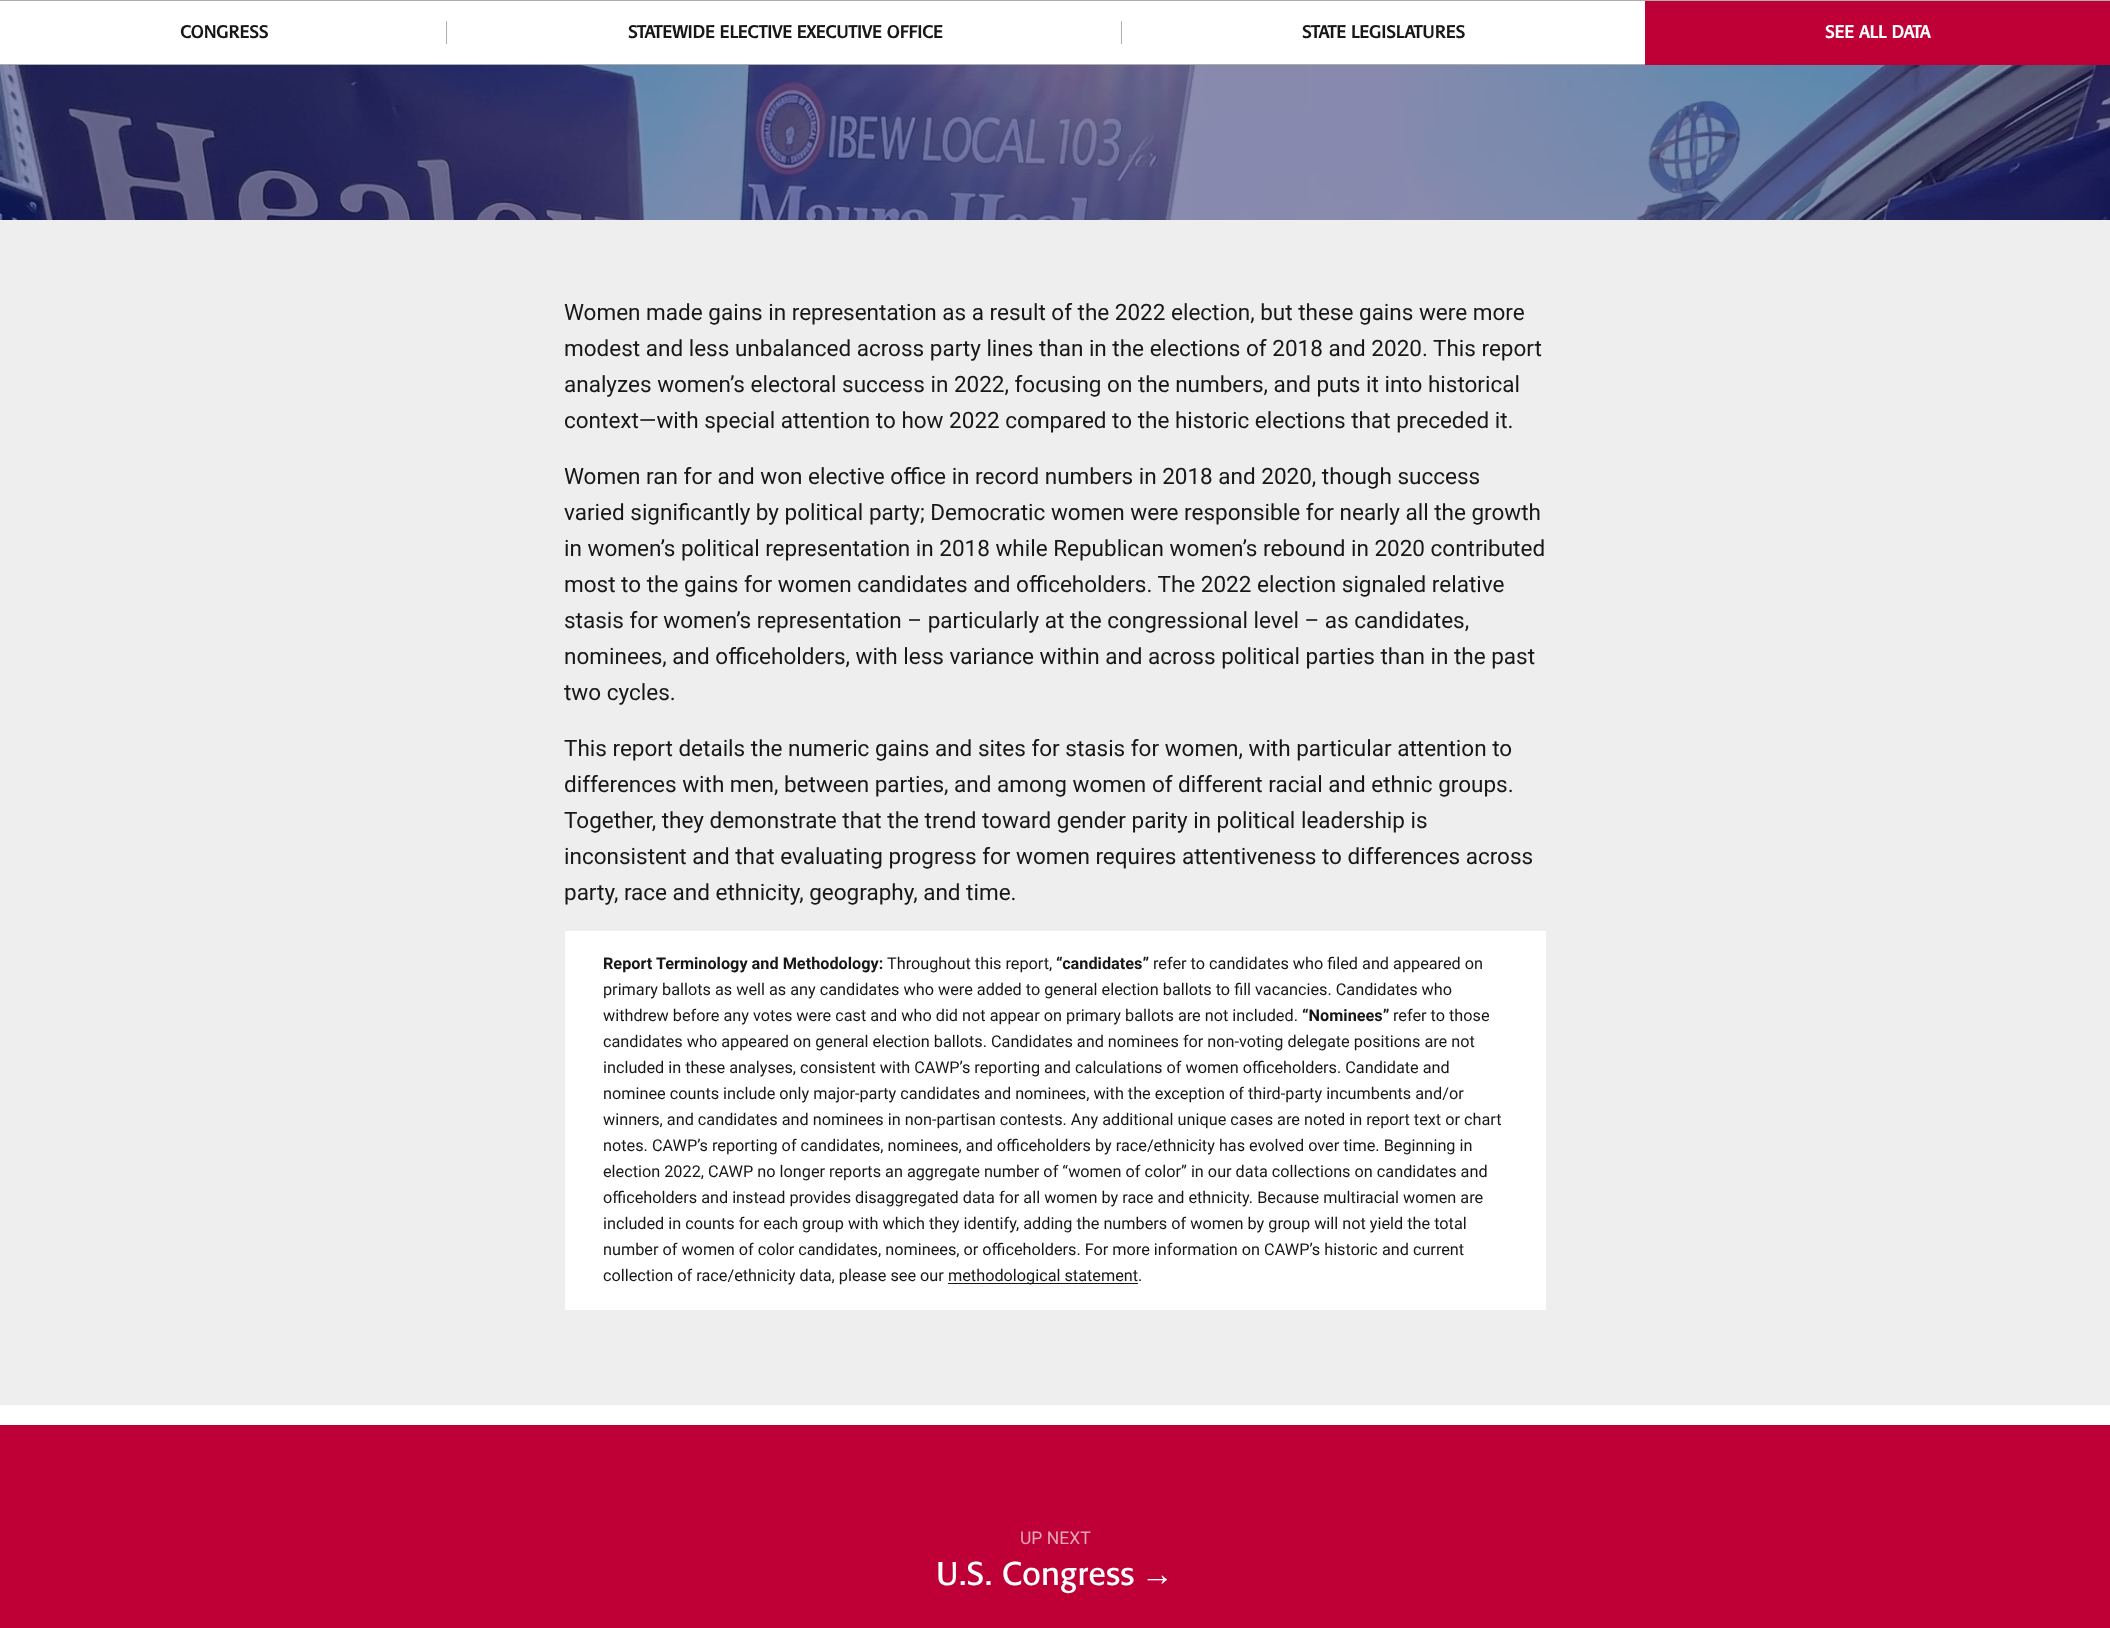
<svg xmlns="http://www.w3.org/2000/svg" width="2110" height="1628">
	<rect width="100%" height="100%" fill="#FFFFFF" />
	<rect x="0" y="0" width="2110" height="1" fill="#ADADAD" />
	<rect x="0" y="64" width="1645" height="1" fill="#ADADAD" />
	<text x="180" y="38" font-family="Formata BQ" font-size="17.5" font-weight="700" fill="#171717">CONGRESS</text>
	<rect x="446" y="21" width="1" height="23" fill="#ADADAD" />
	<text x="628" y="38" font-family="Formata BQ" font-size="17.5" font-weight="700" fill="#171717">STATEWIDE ELECTIVE EXECUTIVE OFFICE</text>
	<rect x="1121" y="21" width="1" height="23" fill="#ADADAD" />
	<text x="1302" y="38" font-family="Formata BQ" font-size="17.5" font-weight="700" fill="#171717">STATE LEGISLATURES</text>
	<rect x="1645" y="1" width="465" height="64" fill="#BE0037" />
	<text x="1825" y="38" font-family="Formata BQ" font-size="17.5" font-weight="700" fill="#FEFEFE">SEE ALL DATA</text>
	<image x="0" y="65" width="2110" height="155" href="assets/img1.png" />
	<rect x="0" y="220" width="2110" height="1185" fill="#EEEEEE" />
	<g font-family="Roboto" font-size="22.5" fill="#171717">
		<text x="564" y="320">Women made gains in representation as a result of the 2022 election, but these gains were more</text>
		<text x="564" y="356">modest and less unbalanced across party lines than in the elections of 2018 and 2020. This report</text>
		<text x="564" y="392">analyzes women’s electoral success in 2022, focusing on the numbers, and puts it into historical</text>
		<text x="564" y="428">context—with special attention to how 2022 compared to the historic elections that preceded it.</text>
		<text x="564" y="484">Women ran for and won elective office in record numbers in 2018 and 2020, though success</text>
		<text x="564" y="520">varied significantly by political party; Democratic women were responsible for nearly all the growth</text>
		<text x="564" y="556">in women’s political representation in 2018 while Republican women’s rebound in 2020 contributed</text>
		<text x="564" y="592">most to the gains for women candidates and officeholders. The 2022 election signaled relative</text>
		<text x="564" y="628">stasis for women’s representation – particularly at the congressional level – as candidates,</text>
		<text x="564" y="664">nominees, and officeholders, with less variance within and across political parties than in the past</text>
		<text x="564" y="700">two cycles.</text>
		<text x="564" y="756">This report details the numeric gains and sites for stasis for women, with particular attention to</text>
		<text x="564" y="792">differences with men, between parties, and among women of different racial and ethnic groups.</text>
		<text x="564" y="828">Together, they demonstrate that the trend toward gender parity in political leadership is</text>
		<text x="564" y="864">inconsistent and that evaluating progress for women requires attentiveness to differences across</text>
		<text x="564" y="900">party, race and ethnicity, geography, and time.</text>
	</g>
	<rect x="565" y="931" width="981" height="379" fill="#FFFFFF" />
	<text x="603" y="969" font-family="Roboto" font-size="16.25" font-weight="700" fill="#171717">Report Terminology and Methodology:</text>
	<text x="887" y="969" font-family="Roboto" font-size="16.25" fill="#171717">Throughout this report,</text>
	<text x="1056" y="969" font-family="Roboto" font-size="16.25" font-weight="700" fill="#171717">“candidates”</text>
	<g font-family="Roboto" font-size="16.25" fill="#171717">
		<text x="1153" y="969">refer to candidates who filed and appeared on</text>
		<text x="603" y="995">primary ballots as well as any candidates who were added to general election ballots to fill vacancies. Candidates who</text>
		<text x="603" y="1021">withdrew before any votes were cast and who did not appear on primary ballots are not included.</text>
	</g>
	<text x="1302" y="1021" font-family="Roboto" font-size="16.25" font-weight="700" fill="#171717">“Nominees”</text>
	<g font-family="Roboto" font-size="16.25" fill="#171717">
		<text x="1393" y="1021">refer to those</text>
		<text x="603" y="1047">candidates who appeared on general election ballots. Candidates and nominees for non-voting delegate positions are not</text>
		<text x="603" y="1073">included in these analyses, consistent with CAWP’s reporting and calculations of women officeholders. Candidate and</text>
		<text x="603" y="1099">nominee counts include only major-party candidates and nominees, with the exception of third-party incumbents and/or</text>
		<text x="603" y="1125">winners, and candidates and nominees in non-partisan contests. Any additional unique cases are noted in report text or chart</text>
		<text x="603" y="1151">notes. CAWP’s reporting of candidates, nominees, and officeholders by race/ethnicity has evolved over time. Beginning in</text>
		<text x="603" y="1177">election 2022, CAWP no longer reports an aggregate number of “women of color” in our data collections on candidates and</text>
		<text x="603" y="1203">officeholders and instead provides disaggregated data for all women by race and ethnicity. Because multiracial women are</text>
		<text x="603" y="1229">included in counts for each group with which they identify, adding the numbers of women by group will not yield the total</text>
		<text x="603" y="1255">number of women of color candidates, nominees, or officeholders. For more information on CAWP’s historic and current</text>
		<text x="603" y="1281">collection of race/ethnicity data, please see our</text>
	</g>
	<rect x="948" y="1283" width="190" height="1" fill="#171717" />
	<text x="948" y="1281" font-family="Roboto" font-size="16.25" fill="#171717">methodological statement.</text>
	<rect x="0" y="1425" width="2110" height="203" fill="#BE0037" />
	<text x="1020" y="1544" font-family="Roboto" font-size="17.5" fill="#E8A5B8">UP NEXT</text>
	<text x="936" y="1585" font-family="Formata BQ" font-size="32.5" fill="#FEFEFE">U.S. Congress</text>
	<text x="1141" y="1585" font-family="Liberation Sans" font-size="32.5" fill="#FEFEFE">→</text>
</svg>
